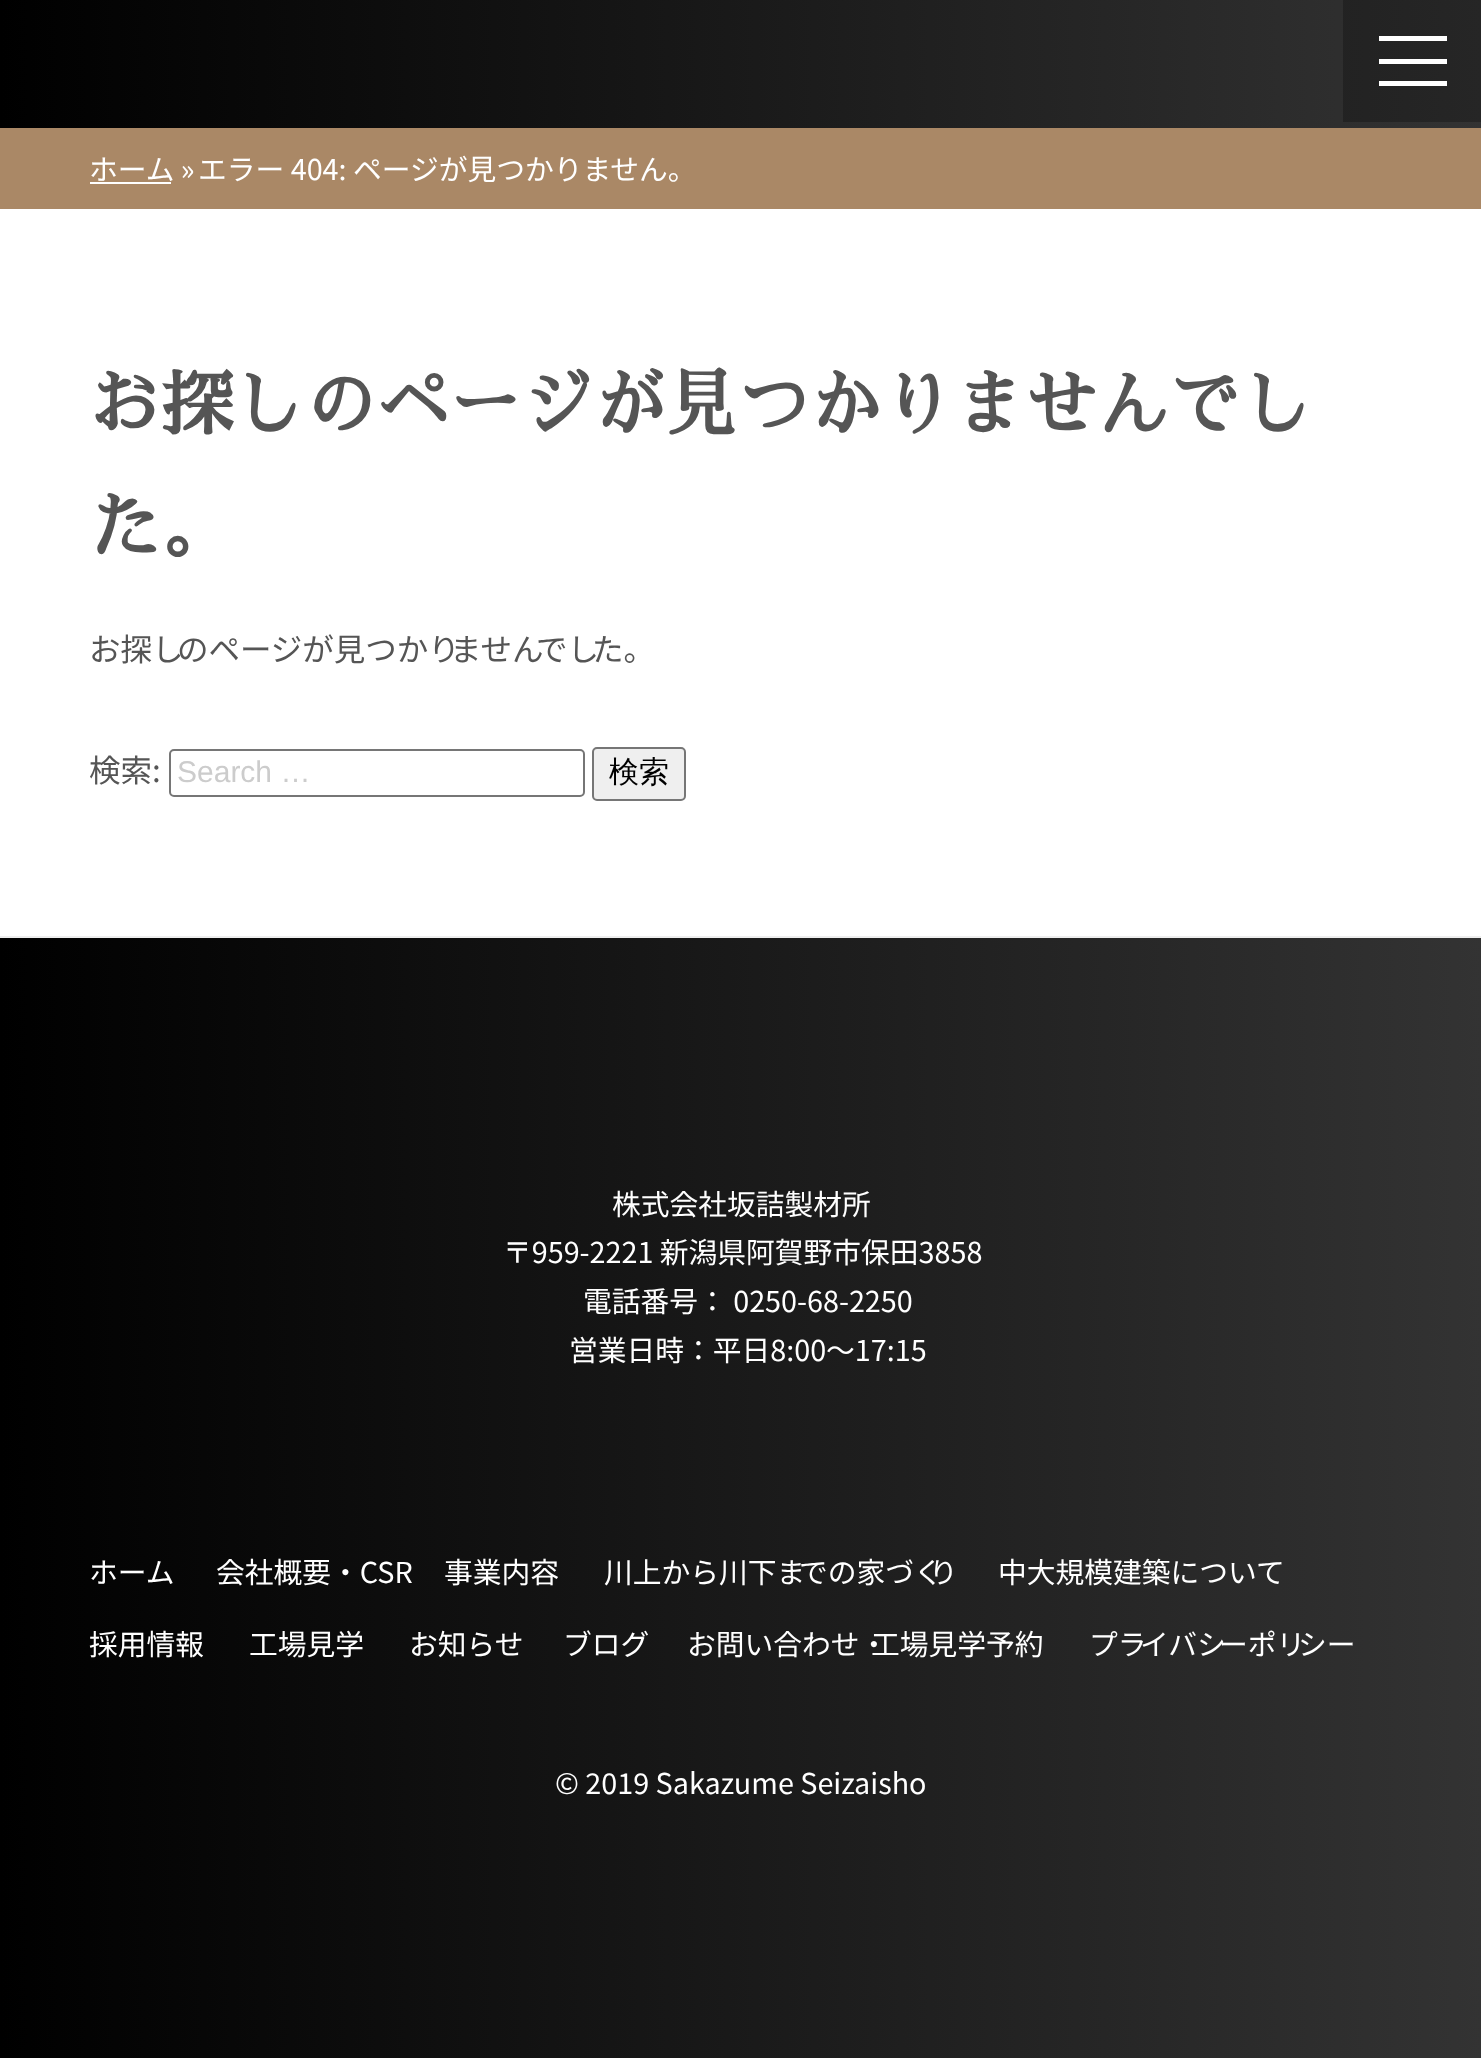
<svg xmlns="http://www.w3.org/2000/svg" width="1481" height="2058">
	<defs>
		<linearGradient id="g1" gradientUnits="userSpaceOnUse" x1="0" y1="971" x2="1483" y2="971"><stop offset="0" stop-color="#000000" /><stop offset="1" stop-color="#333333" /></linearGradient>
		<linearGradient id="g2" gradientUnits="userSpaceOnUse" x1="0" y1="971" x2="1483" y2="971"><stop offset="0" stop-color="#000000" /><stop offset="1" stop-color="#262626" /></linearGradient>
	</defs>
	<rect width="100%" height="100%" fill="#FFFFFF" />
	<rect x="0" y="0" width="1481" height="2058" fill="url(#g1)" />
	<rect x="1343" y="0" width="138" height="122" fill="url(#g2)" />
	<rect x="1379" y="36" width="68" height="5" fill="#FFFFFF" />
	<rect x="1379" y="59" width="68" height="5" fill="#FFFFFF" />
	<rect x="1379" y="81" width="68" height="5" fill="#FFFFFF" />
	<rect x="0" y="209" width="1481" height="727" fill="#FFFFFF" />
	<rect x="0" y="128" width="1481" height="81" fill="#AA8866" />
	<text x="89" y="180" font-family="Noto Sans JP" font-size="28.75" font-weight="100" fill="#FFFFFF">ホーム »</text>
	<rect x="90" y="182" width="81" height="2" fill="#FFFFFF" />
	<text x="198" y="180" font-family="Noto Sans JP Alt" font-size="28.75" font-weight="100" fill="#FFFFFF">エラー 404: ページが見つかりません。</text>
	<rect x="0" y="936" width="1481" height="2" fill="#EEEEEE" />
	<g font-family="Sawarabi Mincho" font-size="72" font-weight="700" fill="#555555">
		<text x="89" y="430">お探しのページが見つかりませんでし</text>
		<text x="89" y="552">た。</text>
	</g>
	<g font-family="Noto Sans JP" font-size="31.5" font-weight="100" fill="#555555">
		<text x="89" y="661">お探し</text>
		<text x="177" y="661">のページが見つかり</text>
		<text x="450" y="661">ません</text>
		<text x="536" y="661">でし</text>
		<text x="592" y="661">た。</text>
		<text x="89" y="782">検索:</text>
	</g>
	<rect x="170" y="750" width="414" height="46" rx="4" fill="none" stroke="#767676" stroke-width="2" />
	<text x="177" y="782" font-family="Liberation Sans" font-size="30" fill="#CCCCCC">Search …</text>
	<rect x="593" y="748" width="92" height="52" rx="4" fill="#EFEFEF" stroke="#767676" stroke-width="2" />
	<text x="609" y="782" font-family="WenQuanYi Zen Hei" font-size="30" font-weight="500" fill="#000000">検索</text>
	<text x="612" y="1215" font-family="Noto Sans JP" font-size="28.75" font-weight="100" fill="#FFFFFF">株式会社坂詰製材所</text>
	<g font-family="Noto Sans JP Alt" font-size="28.75" font-weight="100" fill="#FFFFFF">
		<text x="503" y="1263">〒959-2221 新潟県阿賀野市保田3858</text>
		<text x="583" y="1312">電話番号： 0250-68-2250</text>
		<text x="569" y="1361">営業日時：平日8:00〜17:15</text>
	</g>
	<g font-family="Noto Sans JP" font-size="28.75" font-weight="100" fill="#FFFFFF">
		<text x="89" y="1583">ホーム</text>
		<text x="216" y="1583">会社概要・CSR</text>
		<text x="444" y="1583">事業内容</text>
		<text x="604" y="1583">川上から川下ま</text>
		<text x="799" y="1583">での家づく</text>
		<text x="929" y="1583">り</text>
		<text x="998" y="1583">中大規模建築について</text>
		<text x="89" y="1655">採用情報</text>
		<text x="249" y="1655">工場見学</text>
		<text x="409" y="1655">お知らせ</text>
		<text x="563" y="1655">ブログ</text>
		<text x="687" y="1655">お問い合わせ・</text>
		<text x="871" y="1655">工場見学予約</text>
		<text x="1089" y="1655">プラ</text>
		<text x="1140" y="1655">イバシ</text>
		<text x="1219" y="1655">ーポリ</text>
		<text x="1298" y="1655">シー</text>
		<text x="555" y="1794">© 2019 Sakazume Seizaisho</text>
	</g>
</svg>
